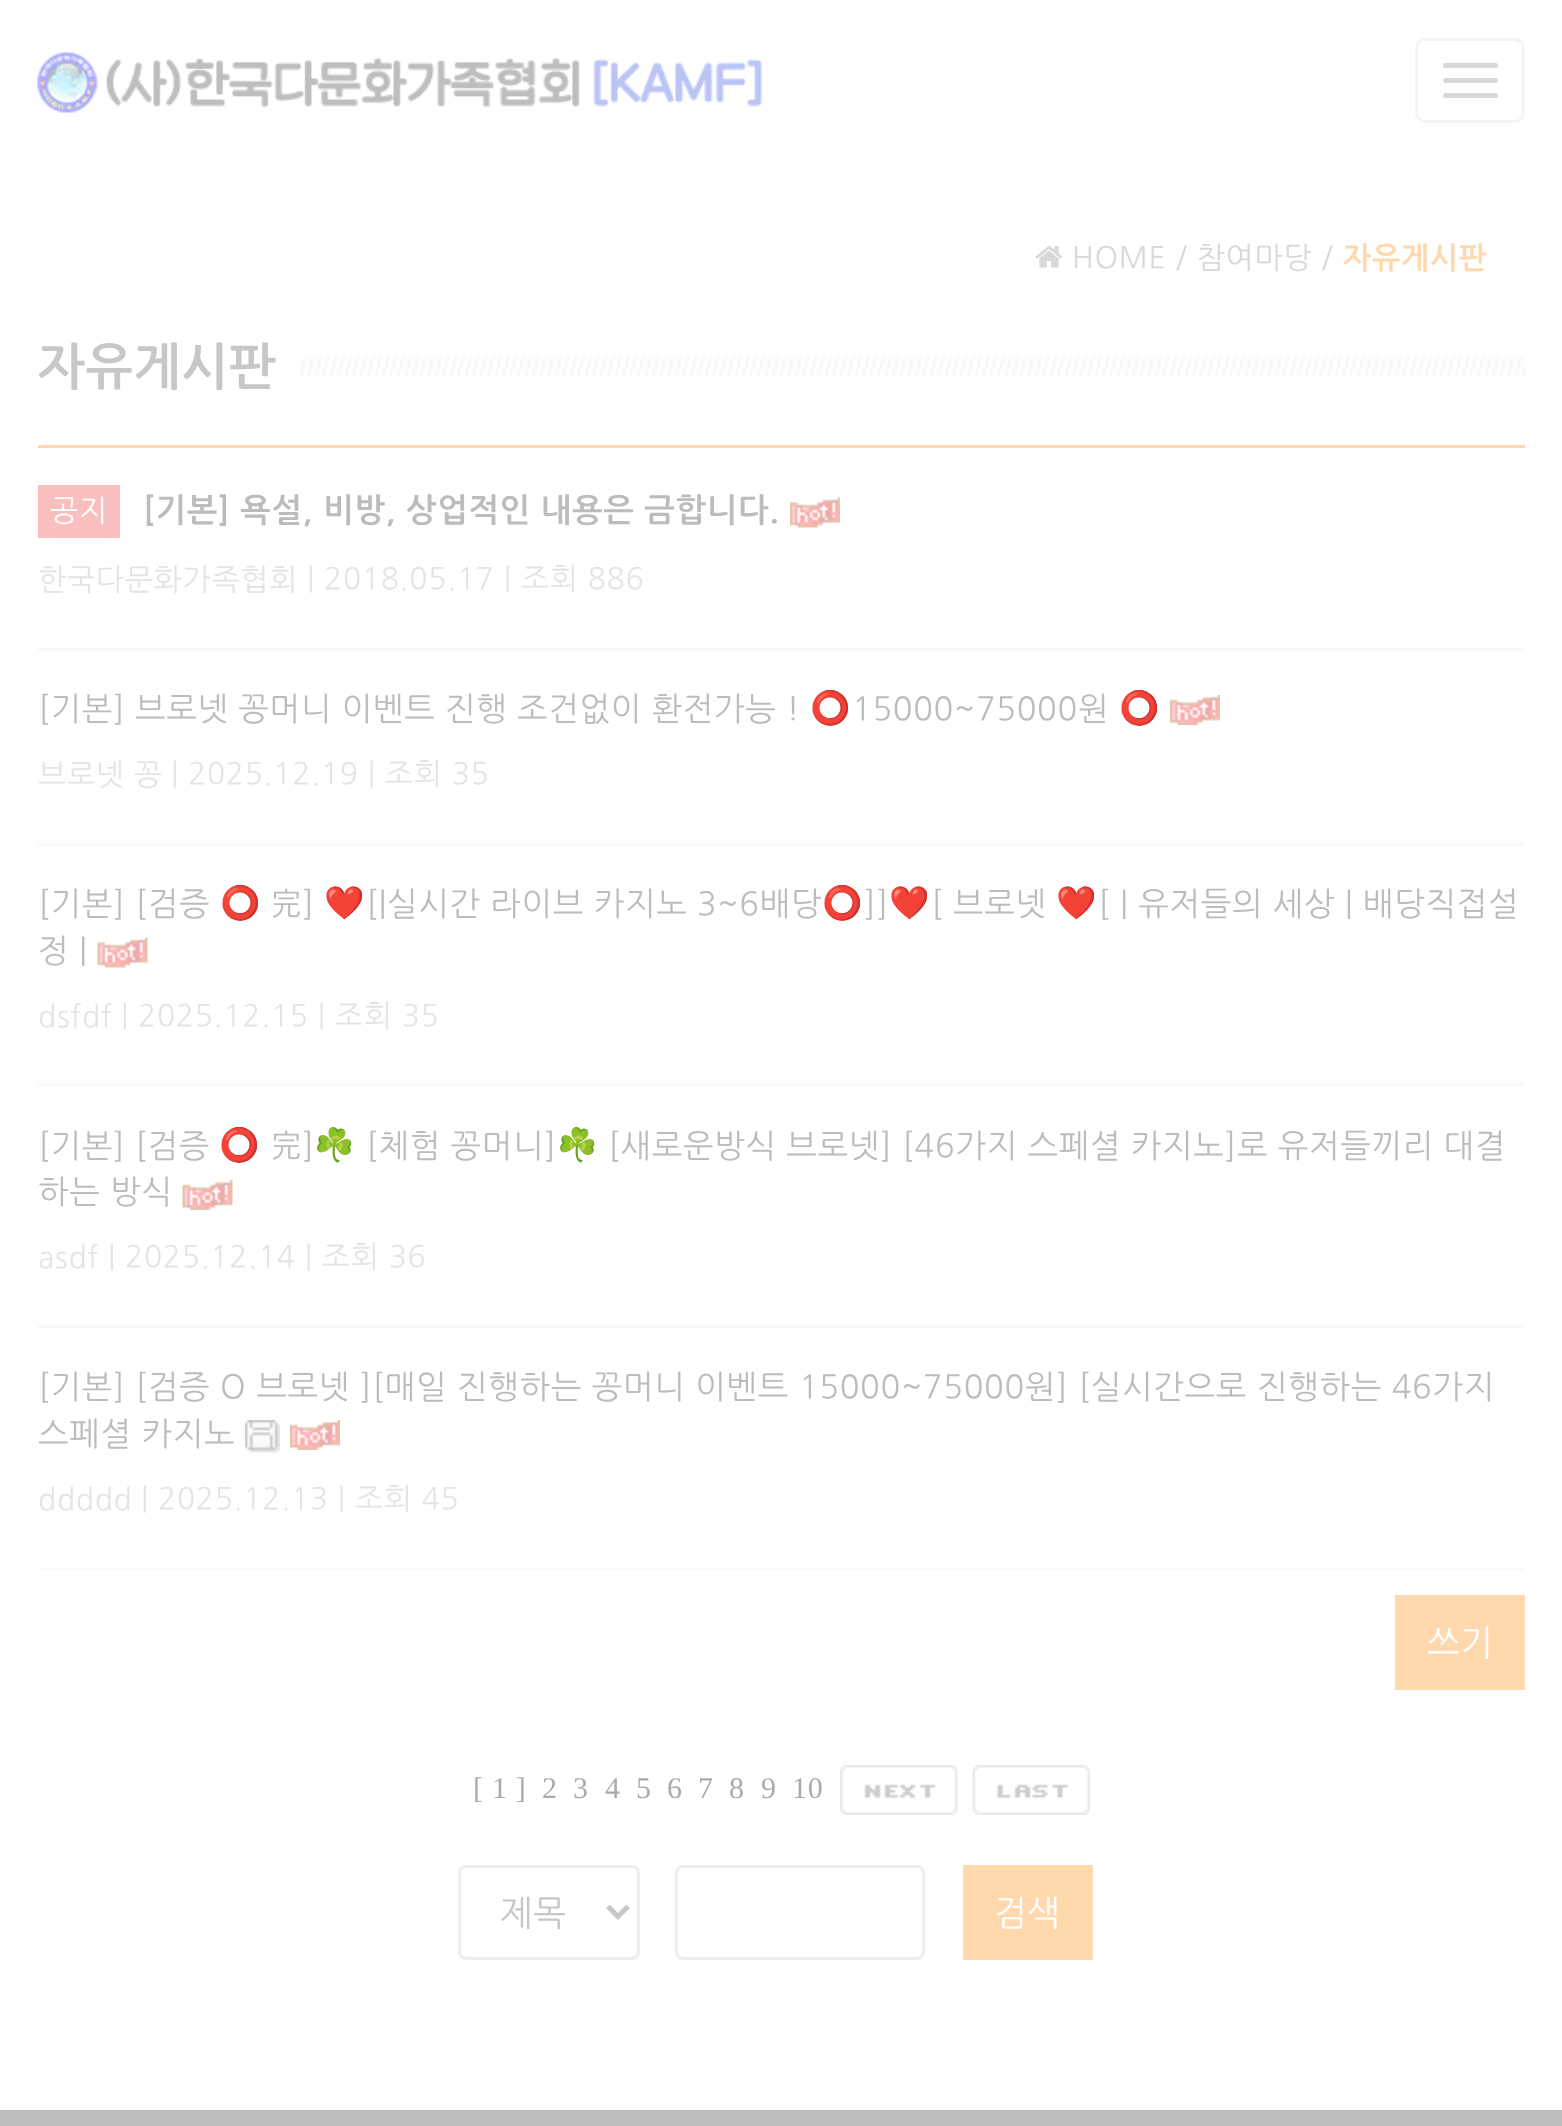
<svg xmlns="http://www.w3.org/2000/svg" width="1562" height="2126">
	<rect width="100%" height="100%" fill="#FFFFFF" />
	<image x="37" y="52" width="726" height="61" href="assets/img1.png" />
	<rect x="1416.5" y="39.5" width="107" height="82" rx="8.5" fill="none" stroke="#F4F4F4" stroke-width="3" />
	<rect x="1443" y="63" width="55" height="5" rx="2.5" fill="#D8D8D8" />
	<rect x="1443" y="78" width="55" height="5" rx="2.5" fill="#D8D8D8" />
	<rect x="1443" y="93" width="55" height="5" rx="2.5" fill="#D8D8D8" />
	<image x="1035" y="246" width="28" height="22" href="assets/img2.png" />
	<text x="1072" y="267" font-family="NanumGothic" font-size="30" letter-spacing="0.7" fill="#D8D8D8">HOME / 참여마당 /</text>
	<text x="1343" y="267" font-family="NanumGothic" font-size="30" font-weight="700" letter-spacing="0.7" fill="#FFD9AD">자유게시판</text>
	<image x="37" y="355" width="1488" height="21" href="assets/img3.png" />
	<rect x="38" y="355" width="262" height="21" fill="#FFFFFF" />
	<text x="38" y="382" font-family="NanumGothic" font-size="50" font-weight="700" letter-spacing="0.7" fill="#C7C7C7">자유게시판</text>
	<rect x="38" y="445" width="1487" height="3" fill="#FFD9AD" />
	<rect x="38" y="648" width="1487" height="3" fill="#F9F9F9" />
	<rect x="38" y="485" width="82" height="53" fill="#F9BFBF" />
	<text x="50" y="520" font-family="NanumGothic" font-size="30" letter-spacing="0.7" fill="#FFFFFF">공지</text>
	<text x="143" y="520" font-family="NanumGothic" font-size="32.5" font-weight="700" letter-spacing="0.7" fill="#BCBCBC">[기본] 욕설, 비방, 상업적인 내용은 금합니다.</text>
	<image x="790" y="497" width="50" height="31" href="assets/img4.png" />
	<g font-family="NanumGothic" font-size="30" letter-spacing="0.7" fill="#E4E4E4">
		<text x="38" y="589">한국다문화가족협회</text>
		<text x="307" y="588">| 2018.05.17 | 조회 886</text>
	</g>
	<rect x="38" y="843" width="1487" height="3" fill="#F9F9F9" />
	<text x="38" y="719" word-spacing="-0.25" font-family="NanumGothic" font-size="32.5" letter-spacing="0.7" fill="#BCBCBC">[기본] 브로넷 꽁머니 이벤트 진행 조건없이 환전가능 !</text>
	<text x="810" y="719" font-family="Noto Color Emoji" font-size="32.5" letter-spacing="0.7" fill="#BCBCBC">⭕️</text>
	<text x="852" y="719" font-family="NanumGothic" font-size="32.5" letter-spacing="0.7" fill="#BCBCBC">15000~75000원</text>
	<text x="1119" y="719" font-family="Noto Color Emoji" font-size="32.5" letter-spacing="0.7" fill="#BCBCBC">⭕️</text>
	<image x="1170" y="695" width="50" height="30" href="assets/img5.png" />
	<g font-family="NanumGothic" font-size="30" letter-spacing="0.7" fill="#E4E4E4">
		<text x="38" y="784">브로넷 꽁</text>
		<text x="171" y="783">| 2025.12.19 | 조회 35</text>
	</g>
	<rect x="38" y="1083" width="1487" height="3" fill="#F9F9F9" />
	<text x="38" y="914" font-family="NanumGothic" font-size="32.5" letter-spacing="0.7" fill="#BCBCBC">[기본] [검증</text>
	<text x="220" y="914" font-family="Noto Color Emoji" font-size="32.5" letter-spacing="0.7" fill="#BCBCBC">⭕️</text>
	<text x="271" y="914" font-family="NanumGothic" font-size="32.5" letter-spacing="0.7" fill="#BCBCBC">完]</text>
	<text x="324" y="914" font-family="Noto Color Emoji" font-size="32.5" letter-spacing="0.7" fill="#BCBCBC">❤️</text>
	<text x="366" y="914" word-spacing="-0.25" font-family="NanumGothic" font-size="32.5" letter-spacing="0.7" fill="#BCBCBC">[|실시간 라이브 카지노 3~6배당</text>
	<text x="822" y="914" font-family="Noto Color Emoji" font-size="32.5" letter-spacing="0.7" fill="#BCBCBC">⭕️</text>
	<text x="864" y="914" font-family="NanumGothic" font-size="32.5" letter-spacing="0.7" fill="#BCBCBC">]]</text>
	<text x="889" y="914" font-family="Noto Color Emoji" font-size="32.5" letter-spacing="0.7" fill="#BCBCBC">❤️</text>
	<text x="931" y="914" word-spacing="-0.25" font-family="NanumGothic" font-size="32.5" letter-spacing="0.7" fill="#BCBCBC">[ 브로넷</text>
	<text x="1056" y="914" font-family="Noto Color Emoji" font-size="32.5" letter-spacing="0.7" fill="#BCBCBC">❤️</text>
	<g font-family="NanumGothic" font-size="32.5" letter-spacing="0.7" fill="#BCBCBC">
		<text x="1098" y="914" word-spacing="-0.25">[ | 유저들의 세상 | 배당직접설</text>
		<text x="38" y="961">정 |</text>
	</g>
	<image x="97" y="937" width="51" height="31" href="assets/img6.png" />
	<g font-family="NanumGothic" font-size="30" letter-spacing="0.7" fill="#E4E4E4">
		<text x="38" y="1026">dsfdf</text>
		<text x="121" y="1025">| 2025.12.15 | 조회 35</text>
	</g>
	<rect x="38" y="1325" width="1487" height="3" fill="#F9F9F9" />
	<text x="38" y="1156" word-spacing="-0.25" font-family="NanumGothic" font-size="32.5" letter-spacing="0.7" fill="#BCBCBC">[기본] [검증</text>
	<text x="219" y="1156" font-family="Noto Color Emoji" font-size="32.5" letter-spacing="0.7" fill="#BCBCBC">⭕️</text>
	<text x="271" y="1156" font-family="NanumGothic" font-size="32.5" letter-spacing="0.7" fill="#BCBCBC">完]</text>
	<text x="314" y="1156" font-family="Noto Color Emoji" font-size="32.5" letter-spacing="0.7" fill="#BCBCBC">☘️</text>
	<text x="366" y="1156" word-spacing="-0.25" font-family="NanumGothic" font-size="32.5" letter-spacing="0.7" fill="#BCBCBC">[체험 꽁머니]</text>
	<text x="557" y="1156" font-family="Noto Color Emoji" font-size="32.5" letter-spacing="0.7" fill="#BCBCBC">☘️</text>
	<g font-family="NanumGothic" font-size="32.5" letter-spacing="0.7" fill="#BCBCBC">
		<text x="608" y="1156" word-spacing="-0.25">[새로운방식 브로넷] [46가지 스페셜 카지노]로 유저들끼리 대결</text>
		<text x="38" y="1202">하는 방식</text>
	</g>
	<image x="182" y="1180" width="51" height="30" href="assets/img7.png" />
	<g font-family="NanumGothic" font-size="30" letter-spacing="0.7" fill="#E4E4E4">
		<text x="38" y="1267">asdf</text>
		<text x="108" y="1266">| 2025.12.14 | 조회 36</text>
	</g>
	<rect x="38" y="1568" width="1487" height="2" fill="#F9F9F9" />
	<g font-family="NanumGothic" font-size="32.5" letter-spacing="0.7" fill="#BCBCBC">
		<text x="38" y="1397">[기본] [검증 O 브로넷 ][매일 진행하는 꽁머니 이벤트 15000~75000원] [실시간으로 진행하는 46가지</text>
		<text x="38" y="1444">스페셜 카지노</text>
	</g>
	<image x="245" y="1420" width="35" height="33" href="assets/img8.png" />
	<image x="290" y="1420" width="50" height="30" href="assets/img9.png" />
	<g font-family="NanumGothic" font-size="30" letter-spacing="0.7" fill="#E4E4E4">
		<text x="38" y="1509">ddddd</text>
		<text x="141" y="1508">| 2025.12.13 | 조회 45</text>
	</g>
	<rect x="1395" y="1595" width="130" height="95" fill="#FFD9AD" />
	<text x="1427" y="1654" font-family="NanumGothic" font-size="35" fill="#FFFFFF">쓰기</text>
	<g font-family="Liberation Serif" font-size="30" letter-spacing="0.7" fill="#ABABAB">
		<text x="473" y="1798">[ 1 ]</text>
		<text x="542" y="1798">2</text>
		<text x="573" y="1798">3</text>
		<text x="605" y="1798">4</text>
		<text x="636" y="1798">5</text>
		<text x="667" y="1798">6</text>
		<text x="698" y="1798">7</text>
		<text x="729" y="1798">8</text>
		<text x="761" y="1798">9</text>
		<text x="792" y="1798">10</text>
	</g>
	<image x="840" y="1765" width="118" height="50" href="assets/img10.png" />
	<image x="972" y="1765" width="118" height="50" href="assets/img11.png" />
	<rect x="459.5" y="1866.5" width="179" height="92" rx="6.5" fill="none" stroke="#EEEEEE" stroke-width="3" />
	<path d="M608 1906.5L618 1916.5L628 1906.5" fill="none" stroke="#C7C7C7" stroke-width="5" />
	<text x="500" y="1924" font-family="NanumGothic" font-size="35" fill="#C7C7C7">제목</text>
	<rect x="676.5" y="1866.5" width="247" height="92" rx="6.5" fill="none" stroke="#EEEEEE" stroke-width="3" />
	<rect x="963" y="1865" width="130" height="95" fill="#FFD9AD" />
	<text x="994" y="1924" font-family="NanumGothic" font-size="35" fill="#FFFFFF">검색</text>
	<rect x="0" y="2110" width="1562" height="16" fill="#BDBDBD" />
</svg>
